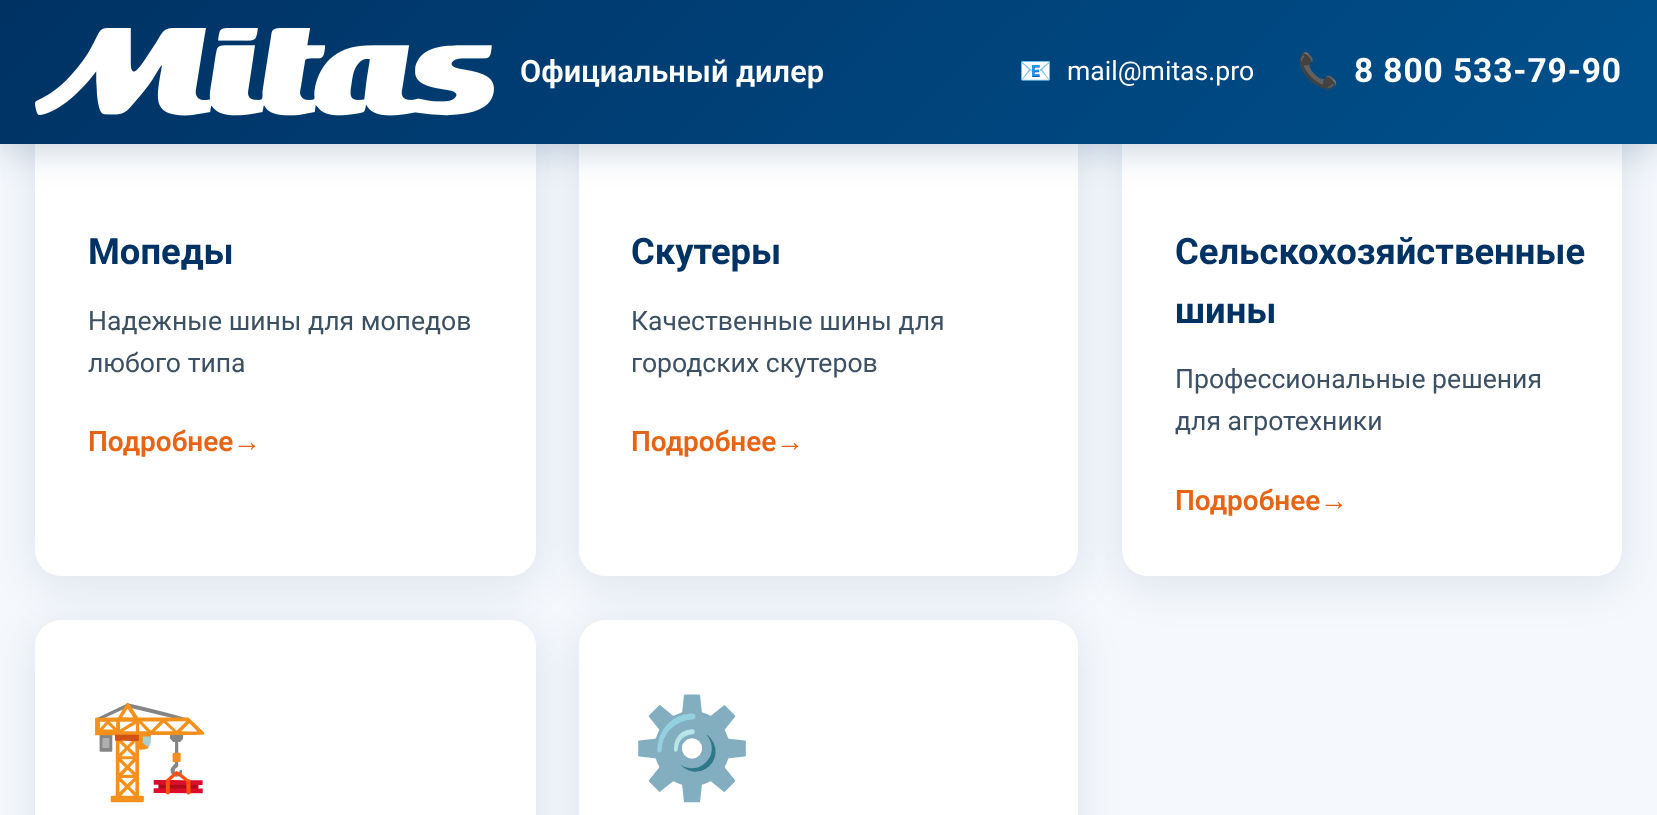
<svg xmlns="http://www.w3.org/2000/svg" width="1657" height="815">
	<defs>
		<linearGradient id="g1" gradientUnits="userSpaceOnUse" x1="378" y1="-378" x2="1279" y2="522"><stop offset="0" stop-color="#003264" /><stop offset="1" stop-color="#00508C" /></linearGradient>
	</defs>
	<rect width="100%" height="100%" fill="#F5F8FC" />
	<rect x="35" y="-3" width="501" height="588" rx="26" fill="#003264" fill-opacity="0.1" filter="blur(22px)" />
	<rect x="35" y="-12" width="501" height="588" rx="26" fill="#FFFFFF" />
	<rect x="579" y="-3" width="499" height="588" rx="26" fill="#003264" fill-opacity="0.1" filter="blur(22px)" />
	<rect x="579" y="-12" width="499" height="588" rx="26" fill="#FFFFFF" />
	<rect x="1122" y="-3" width="500" height="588" rx="26" fill="#003264" fill-opacity="0.1" filter="blur(22px)" />
	<rect x="1122" y="-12" width="500" height="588" rx="26" fill="#FFFFFF" />
	<rect x="0" y="7" width="1657" height="144" fill="#003264" fill-opacity="0.2" filter="blur(17.5px)" />
	<rect x="0" y="0" width="1657" height="144" fill="url(#g1)" />
	<image x="35" y="28" width="459" height="88" href="assets/img1.png" />
	<text x="520" y="82" font-family="Roboto" font-size="30.75" font-weight="600" fill="#FFFFFF">Официальный дилер</text>
	<text x="1019" y="80" font-family="Noto Color Emoji" font-size="26.6" fill="#FFFFFF">📧</text>
	<text x="1067" y="80" font-family="Roboto" font-size="26.6" fill="#FFFFFF">mail@mitas.pro</text>
	<text x="1297" y="82" font-family="Noto Color Emoji" font-size="33.5" font-weight="700" letter-spacing="0.9" fill="#FFFFFF">📞</text>
	<text x="1354" y="82" font-family="Roboto" font-size="33.5" font-weight="700" letter-spacing="0.9" fill="#FFFFFF">8 800 533-79-90</text>
	<text x="88" y="264" font-family="Roboto" font-size="36.4" font-weight="700" fill="#003264">Мопеды</text>
	<g font-family="Roboto" font-size="26.6" fill="#3C5064">
		<text x="88" y="330">Надежные шины для мопедов</text>
		<text x="88" y="372">любого типа</text>
	</g>
	<text x="88" y="451" font-family="Roboto" font-size="28" font-weight="600" fill="#E66414">Подробнее</text>
	<text x="233" y="451" font-family="Liberation Sans" font-size="28" font-weight="700" fill="#E66414">→</text>
	<text x="631" y="264" font-family="Roboto" font-size="36.4" font-weight="700" fill="#003264">Скутеры</text>
	<g font-family="Roboto" font-size="26.6" fill="#3C5064">
		<text x="631" y="330">Качественные шины для</text>
		<text x="631" y="372">городских скутеров</text>
	</g>
	<text x="631" y="451" font-family="Roboto" font-size="28" font-weight="600" fill="#E66414">Подробнее</text>
	<text x="776" y="451" font-family="Liberation Sans" font-size="28" font-weight="700" fill="#E66414">→</text>
	<g font-family="Roboto" font-size="36.4" font-weight="700" fill="#003264">
		<text x="1175" y="264">Сельскохозяйственные</text>
		<text x="1175" y="323">шины</text>
	</g>
	<g font-family="Roboto" font-size="26.6" fill="#3C5064">
		<text x="1175" y="388">Профессиональные решения</text>
		<text x="1175" y="430">для агротехники</text>
	</g>
	<text x="1175" y="510" font-family="Roboto" font-size="28" font-weight="600" fill="#E66414">Подробнее</text>
	<text x="1320" y="510" font-family="Liberation Sans" font-size="28" font-weight="700" fill="#E66414">→</text>
	<rect x="35" y="628" width="501" height="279" rx="26" fill="#003264" fill-opacity="0.1" filter="blur(22px)" />
	<rect x="35" y="620" width="501" height="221" rx="26" fill="#FFFFFF" />
	<text x="88" y="782" font-family="Noto Color Emoji" font-size="98" fill="#003264">🏗️</text>
	<rect x="579" y="628" width="499" height="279" rx="26" fill="#003264" fill-opacity="0.1" filter="blur(22px)" />
	<rect x="579" y="620" width="499" height="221" rx="26" fill="#FFFFFF" />
	<text x="631" y="782" font-family="Noto Color Emoji" font-size="98" fill="#003264">⚙️</text>
</svg>
